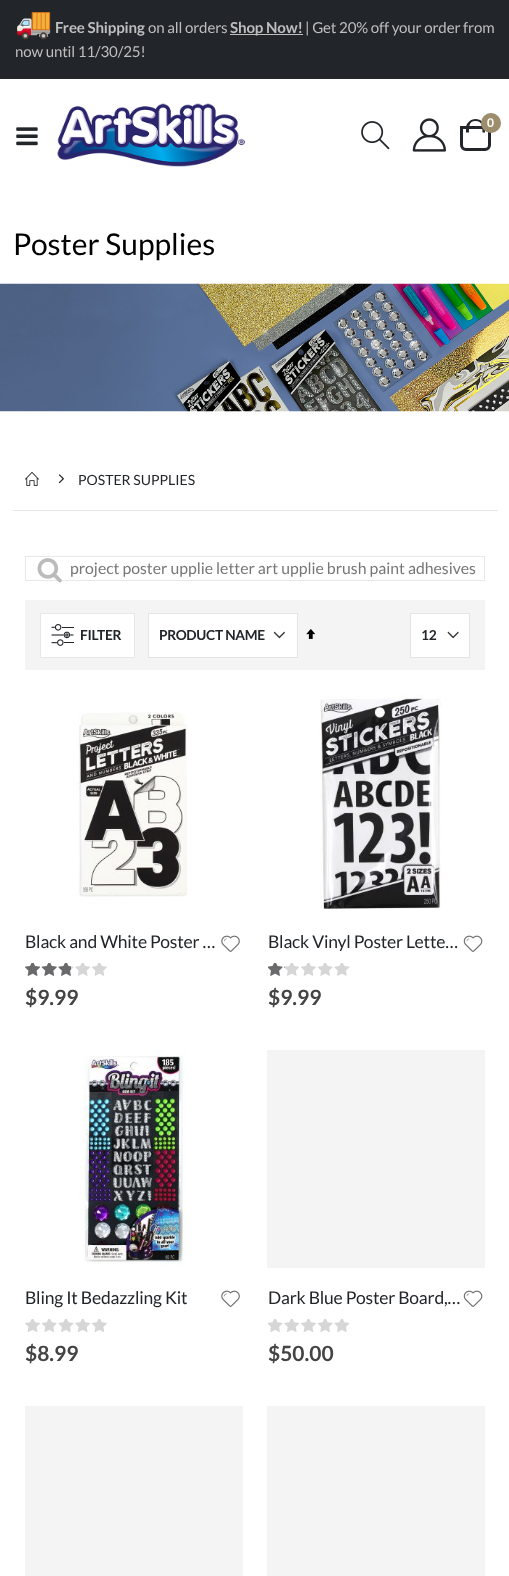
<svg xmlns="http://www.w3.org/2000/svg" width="509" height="1576">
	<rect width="100%" height="100%" fill="#FFFFFF" />
	<rect x="0" y="0" width="509" height="79" fill="#222529" />
	<text x="15" y="33" font-family="Noto Color Emoji" font-size="30" letter-spacing="-0.15" fill="#BDBEBF">🚚</text>
	<text x="55" y="33" font-family="Lato" font-size="15.1" font-weight="700" letter-spacing="-0.15" fill="#BDBEBF">Free Shipping</text>
	<text x="148" y="33" font-family="Lato" font-size="15.1" letter-spacing="-0.15" fill="#BDBEBF">on all orders</text>
	<rect x="230" y="34" width="73" height="1" fill="#BDBEBF" />
	<text x="230" y="33" font-family="Lato" font-size="15.1" font-weight="700" letter-spacing="-0.15" fill="#BDBEBF">Shop Now!</text>
	<g font-family="Lato" font-size="15.1" letter-spacing="-0.15" fill="#BDBEBF">
		<text x="305" y="33">| Get 20% off your order from</text>
		<text x="15" y="57">now until 11/30/25!</text>
	</g>
	<image x="16" y="127" width="22" height="19" href="assets/img1.png" />
	<image x="57" y="103" width="188" height="64" href="assets/img2.png" />
	<image x="361" y="121" width="29" height="29" href="assets/img3.png" />
	<image x="412" y="118" width="34" height="34" href="assets/img4.png" />
	<path d="M461.5 127.5H489.5V145C489.5 147.5 487.5 149.5 485 149.5H466C463.5 149.5 461.5 147.5 461.5 145Z" fill="none" stroke="#222529" stroke-width="3" />
	<path d="M475.5 119C481 119 485 123 485 128V132.5H466V128C466 123 470.5 119 475.5 119ZM475.5 121C482.5 121 482.5 127.5 482.5 132.5H469C469 127.5 468.5 121 475.5 121Z" fill="#222529" fill-rule="evenodd" />
	<circle cx="491" cy="123" r="10" fill="#9D8D6C" />
	<text x="487" y="127" font-family="Lato" font-size="12" font-weight="700" fill="#FFFFFF">0</text>
	<text x="13" y="255" font-family="Lato" font-size="30" fill="#000000">Poster Supplies</text>
	<image x="0" y="283" width="509" height="129" href="assets/img5.png" />
	<image x="25" y="472" width="14" height="14" href="assets/img6.png" />
	<image x="58" y="474" width="6" height="10" href="assets/img7.png" />
	<text x="78" y="485" font-family="Lato" font-size="14" fill="#222529">POSTER SUPPLIES</text>
	<rect x="13" y="510" width="485" height="1" fill="#E7E7E7" />
	<rect x="25.5" y="556.5" width="459" height="24" fill="none" stroke="#E8E8E8" />
	<image x="37" y="558" width="25" height="25" href="assets/img8.png" />
	<text x="70" y="574" font-family="Lato" font-size="15.8" fill="#777777">project poster upplie letter art upplie brush paint adhesives</text>
	<rect x="25" y="600" width="460" height="70" fill="#F4F4F4" />
	<rect x="40.5" y="613.5" width="94" height="44" fill="#FFFFFF" stroke="#E7E7E7" />
	<image x="51" y="624" width="23" height="22" href="assets/img9.png" />
	<text x="80" y="640" font-family="Lato" font-size="13.75" font-weight="700" letter-spacing="-0.3" fill="#222529">FILTER</text>
	<rect x="149" y="614" width="148" height="43" fill="#FFFFFF" />
	<image x="273" y="631" width="12" height="8" href="assets/img10.png" />
	<rect x="148.5" y="613.5" width="149" height="44" fill="none" stroke="#E4E4E4" />
	<text x="159" y="640" font-family="Lato" font-size="13.75" font-weight="700" letter-spacing="-0.3" fill="#222529">PRODUCT NAME</text>
	<image x="306" y="629" width="9" height="10" href="assets/img11.png" />
	<rect x="411" y="614" width="58" height="43" fill="#FFFFFF" />
	<image x="447" y="631" width="12" height="8" href="assets/img12.png" />
	<rect x="410.5" y="613.5" width="59" height="44" fill="none" stroke="#E4E4E4" />
	<text x="421" y="640" font-family="Lato" font-size="13.75" font-weight="700" letter-spacing="-0.3" fill="#222529">12</text>
	<image x="77" y="712" width="111" height="185" href="assets/img13.png" />
	<image x="221" y="935" width="19" height="17" href="assets/img14.png" />
	<text x="25" y="948" font-family="Lato" font-size="17.5" letter-spacing="-0.2" fill="#222529">Black and White Poster …</text>
	<image x="25" y="963" width="82" height="13" href="assets/img15.png" />
	<image x="25" y="963" width="46" height="13" href="assets/img16.png" />
	<text x="25" y="1005" font-family="Lato" font-size="21" font-weight="700" fill="#444444">$9.99</text>
	<image x="320" y="695" width="122" height="214" href="assets/img17.png" />
	<image x="463" y="935" width="20" height="17" href="assets/img18.png" />
	<text x="268" y="948" font-family="Lato" font-size="17.5" letter-spacing="-0.2" fill="#222529">Black Vinyl Poster Lette…</text>
	<image x="268" y="963" width="82" height="13" href="assets/img19.png" />
	<image x="268" y="963" width="17" height="13" href="assets/img20.png" />
	<text x="268" y="1005" font-family="Lato" font-size="21" font-weight="700" fill="#444444">$9.99</text>
	<image x="83" y="1050" width="104" height="215" href="assets/img21.png" />
	<image x="221" y="1290" width="19" height="17" href="assets/img14.png" />
	<text x="25" y="1304" font-family="Lato" font-size="17.5" letter-spacing="-0.2" fill="#222529">Bling It Bedazzling Kit</text>
	<image x="25" y="1319" width="82" height="13" href="assets/img22.png" />
	<text x="25" y="1361" font-family="Lato" font-size="21" font-weight="700" fill="#444444">$8.99</text>
	<rect x="267" y="1050" width="218" height="218" fill="#F4F4F4" />
	<image x="463" y="1290" width="20" height="17" href="assets/img18.png" />
	<text x="268" y="1304" font-family="Lato" font-size="17.5" letter-spacing="-0.2" fill="#222529">Dark Blue Poster Board,…</text>
	<image x="268" y="1319" width="82" height="13" href="assets/img23.png" />
	<text x="268" y="1361" font-family="Lato" font-size="21" font-weight="700" fill="#444444">$50.00</text>
	<rect x="25" y="1406" width="218" height="170" fill="#F4F4F4" />
	<rect x="267" y="1406" width="218" height="170" fill="#F4F4F4" />
</svg>
